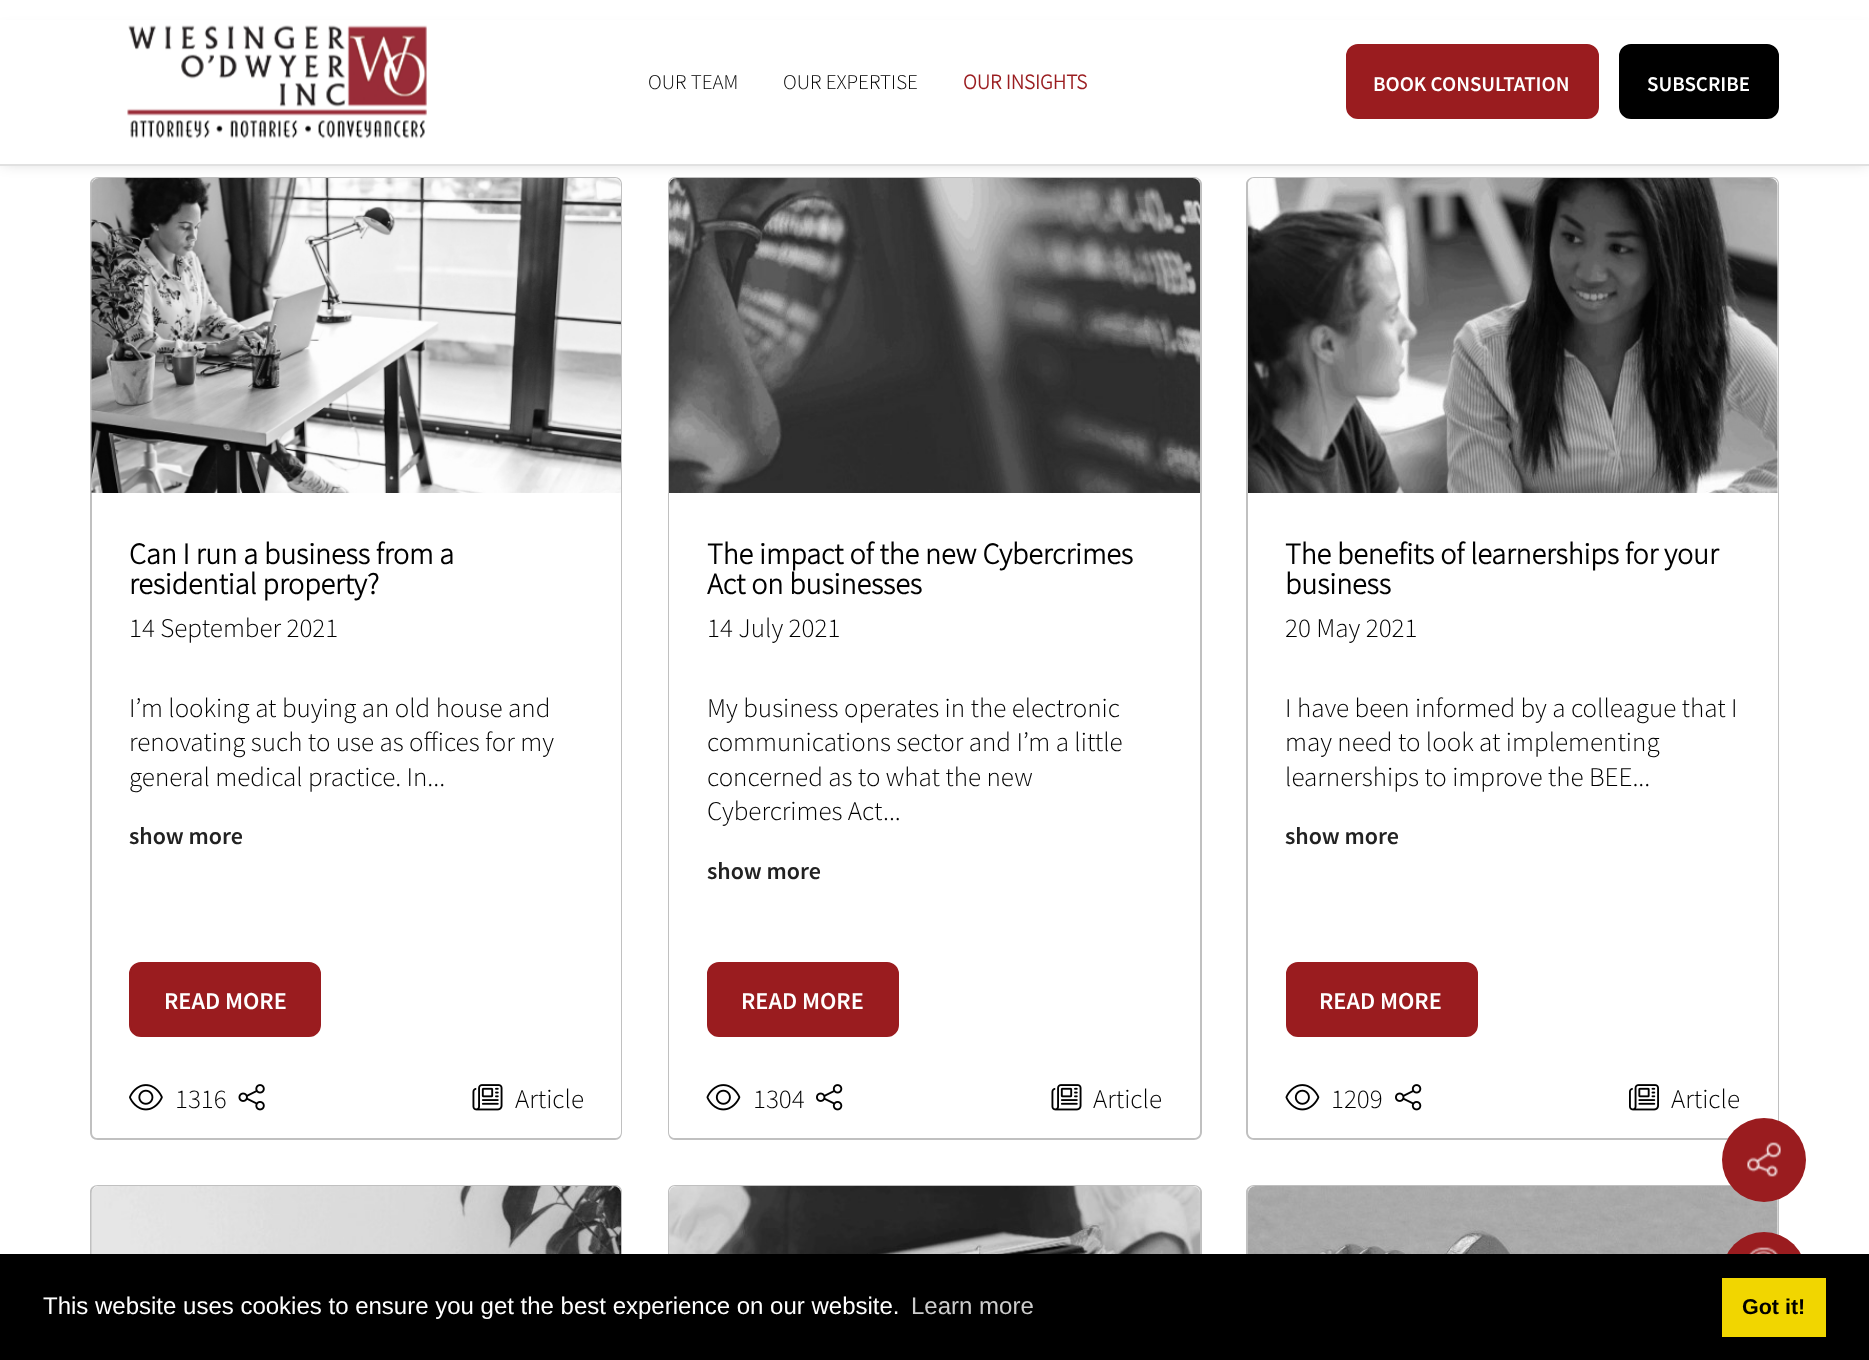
<svg xmlns="http://www.w3.org/2000/svg" width="1869" height="1360">
	<rect width="100%" height="100%" fill="#FFFFFF" />
	<path d="M98 177H615C619 177 622 180 622 184V494H90V184C90 180 93 177 98 177ZM98 178H615C618 178 621 181 621 184V494H92V184C92 181 94 178 98 178Z" fill="#C0C0C0" fill-rule="evenodd" />
	<image x="91" y="178" width="530" height="315" href="assets/img2.png" />
	<path d="M675 177H1194C1198 177 1202 180 1202 184V494H668V184C668 180 671 177 675 177ZM675 178H1194C1197 178 1200 181 1200 184V494H669V184C669 181 672 178 675 178Z" fill="#C0C0C0" fill-rule="evenodd" />
	<image x="669" y="178" width="531" height="315" href="assets/img6.png" />
	<path d="M1254 177H1772C1776 177 1779 180 1779 184V494H1246V184C1246 180 1250 177 1254 177ZM1254 178H1772C1775 178 1778 181 1778 184V494H1248V184C1248 181 1251 178 1254 178Z" fill="#C0C0C0" fill-rule="evenodd" />
	<image x="1248" y="178" width="530" height="315" href="assets/img9.png" />
	<rect x="2" y="32" width="1866" height="130" fill="#000000" fill-opacity="0.2" filter="blur(7.5px)" />
	<rect x="0" y="20" width="1869" height="144" fill="#FFFFFF" />
	<rect x="0" y="164" width="1869" height="2" fill="#E1E1E1" />
	<image x="127" y="25" width="300" height="114" href="assets/img1.png" />
	<g font-family="Source Sans Pro" font-size="21" font-weight="300" fill="#000000">
		<text x="648" y="89">OUR TEAM</text>
		<text x="783" y="89">OUR EXPERTISE</text>
	</g>
	<text x="963" y="89" font-family="Source Sans Pro" font-size="21" font-weight="700" fill="#9A1C1F">OUR INSIGHTS</text>
	<rect x="1347" y="45" width="251" height="73" rx="11" fill="#9A1C1F" stroke="#9A1C1F" stroke-width="2" />
	<text x="1373" y="91" font-family="Source Sans Pro" font-size="21" font-weight="600" fill="#FFFFFF">BOOK CONSULTATION</text>
	<rect x="1620" y="45" width="158" height="73" rx="11" fill="#000000" stroke="#000000" stroke-width="2" />
	<text x="1647" y="91" font-family="Source Sans Pro" font-size="21" font-weight="600" fill="#FFFFFF">SUBSCRIBE</text>
	<path d="M90 494H622V1132C622 1137 619 1140 615 1140H98C93 1140 90 1137 90 1132ZM92 494H621V1132C621 1136 618 1138 615 1138H98C94 1138 92 1136 92 1132Z" fill="#C0C0C0" fill-rule="evenodd" />
	<g font-family="Source Sans Pro" font-size="30" font-weight="700" fill="#000000">
		<text x="129" y="564">Can I run a business from a</text>
		<text x="129" y="594">residential property?</text>
	</g>
	<g font-family="Source Sans Pro" font-size="27" font-weight="300" fill="#000000">
		<text x="129" y="637">14 September 2021</text>
		<text x="129" y="717">I’m looking at buying an old house and</text>
		<text x="129" y="751">renovating such to use as offices for my</text>
		<text x="129" y="786">general medical practice. In...</text>
	</g>
	<text x="129" y="844" font-family="Source Sans Pro" font-size="24" font-weight="600" fill="#222222">show more</text>
	<rect x="130" y="963" width="190" height="73" rx="11" fill="#9A1C1F" stroke="#9A1C1F" stroke-width="2" />
	<text x="164" y="1009" font-family="Source Sans Pro" font-size="24.25" font-weight="600" fill="#FFFFFF">READ MORE</text>
	<image x="129" y="1084" width="34" height="27" href="assets/img3.png" />
	<text x="175" y="1108" font-family="Source Sans Pro" font-size="27" font-weight="300" fill="#000000">1316</text>
	<image x="238" y="1084" width="27" height="27" href="assets/img4.png" />
	<image x="472" y="1084" width="31" height="27" href="assets/img5.png" />
	<text x="515" y="1108" font-family="Source Sans Pro" font-size="27" font-weight="300" fill="#000000">Article</text>
	<path d="M668 494H1202V1132C1202 1137 1198 1140 1194 1140H675C671 1140 668 1137 668 1132ZM669 494H1200V1132C1200 1136 1197 1138 1194 1138H675C672 1138 669 1136 669 1132Z" fill="#C0C0C0" fill-rule="evenodd" />
	<g font-family="Source Sans Pro" font-size="30" font-weight="700" fill="#000000">
		<text x="707" y="564">The impact of the new Cybercrimes</text>
		<text x="707" y="594">Act on businesses</text>
	</g>
	<g font-family="Source Sans Pro" font-size="27" font-weight="300" fill="#000000">
		<text x="707" y="637">14 July 2021</text>
		<text x="707" y="717">My business operates in the electronic</text>
		<text x="707" y="751">communications sector and I’m a little</text>
		<text x="707" y="786">concerned as to what the new</text>
		<text x="707" y="820">Cybercrimes Act</text>
		<text x="883" y="820">...</text>
	</g>
	<text x="707" y="879" font-family="Source Sans Pro" font-size="24" font-weight="600" fill="#222222">show more</text>
	<rect x="708" y="963" width="190" height="73" rx="11" fill="#9A1C1F" stroke="#9A1C1F" stroke-width="2" />
	<text x="741" y="1009" font-family="Source Sans Pro" font-size="24.25" font-weight="600" fill="#FFFFFF">READ MORE</text>
	<image x="706" y="1084" width="35" height="27" href="assets/img7.png" />
	<text x="753" y="1108" font-family="Source Sans Pro" font-size="27" font-weight="300" fill="#000000">1304</text>
	<image x="816" y="1084" width="27" height="27" href="assets/img8.png" />
	<image x="1051" y="1084" width="31" height="27" href="assets/img5.png" />
	<text x="1093" y="1108" font-family="Source Sans Pro" font-size="27" font-weight="300" fill="#000000">Article</text>
	<path d="M1246 494H1779V1132C1779 1137 1776 1140 1772 1140H1254C1250 1140 1246 1137 1246 1132ZM1248 494H1778V1132C1778 1136 1775 1138 1772 1138H1254C1251 1138 1248 1136 1248 1132Z" fill="#C0C0C0" fill-rule="evenodd" />
	<g font-family="Source Sans Pro" font-size="30" font-weight="700" fill="#000000">
		<text x="1285" y="564">The benefits of learnerships for your</text>
		<text x="1285" y="594">business</text>
	</g>
	<g font-family="Source Sans Pro" font-size="27" font-weight="300" fill="#000000">
		<text x="1285" y="637">20 May 2021</text>
		<text x="1285" y="717">I have been informed by a colleague that I</text>
		<text x="1285" y="751">may need to look at implementing</text>
		<text x="1285" y="786">learnerships to improve the BEE...</text>
	</g>
	<text x="1285" y="844" font-family="Source Sans Pro" font-size="24" font-weight="600" fill="#222222">show more</text>
	<rect x="1287" y="963" width="190" height="73" rx="11" fill="#9A1C1F" stroke="#9A1C1F" stroke-width="2" />
	<text x="1319" y="1009" font-family="Source Sans Pro" font-size="24.25" font-weight="600" fill="#FFFFFF">READ MORE</text>
	<image x="1285" y="1084" width="35" height="27" href="assets/img7.png" />
	<text x="1331" y="1108" font-family="Source Sans Pro" font-size="27" font-weight="300" fill="#000000">1209</text>
	<image x="1395" y="1084" width="27" height="27" href="assets/img8.png" />
	<image x="1629" y="1084" width="30" height="27" href="assets/img10.png" />
	<text x="1671" y="1108" font-family="Source Sans Pro" font-size="27" font-weight="300" fill="#000000">Article</text>
	<path d="M98 1185H615C619 1185 622 1188 622 1192V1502H90V1192C90 1188 93 1185 98 1185ZM98 1186H615C618 1186 621 1189 621 1192V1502H92V1192C92 1189 94 1186 98 1186Z" fill="#C0C0C0" fill-rule="evenodd" />
	<image x="91" y="1186" width="530" height="68" href="assets/img11.png" />
	<path d="M675 1185H1194C1198 1185 1202 1188 1202 1192V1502H668V1192C668 1188 671 1185 675 1185ZM675 1186H1194C1197 1186 1200 1189 1200 1192V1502H669V1192C669 1189 672 1186 675 1186Z" fill="#C0C0C0" fill-rule="evenodd" />
	<image x="669" y="1186" width="531" height="68" href="assets/img12.png" />
	<path d="M1254 1185H1772C1776 1185 1779 1188 1779 1192V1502H1246V1192C1246 1188 1250 1185 1254 1185ZM1254 1186H1772C1775 1186 1778 1189 1778 1192V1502H1248V1192C1248 1189 1251 1186 1254 1186Z" fill="#C0C0C0" fill-rule="evenodd" />
	<image x="1248" y="1186" width="530" height="68" href="assets/img13.png" />
	<circle cx="1764" cy="1160" r="42" fill="#9A1C1F" />
	<image x="1747" y="1142" width="34" height="35" href="assets/img14.png" />
	<circle cx="1764" cy="1274" r="42" fill="#9A1C1F" />
	<image x="1749" y="1247" width="29" height="7" href="assets/img15.png" />
	<rect x="0" y="1254" width="1869" height="106" fill="#000000" />
	<text x="43" y="1314" font-family="Liberation Sans" font-size="24" fill="#FFFFFF">This website uses cookies to ensure you get the best experience on our website.</text>
	<text x="911" y="1314" font-family="Liberation Sans" font-size="24" fill="#CCCCCC">Learn more</text>
	<rect x="1722" y="1278" width="104" height="59" fill="#F1D600" />
	<text x="1742" y="1314" font-family="Liberation Sans" font-size="21.5" font-weight="700" fill="#000000">Got it!</text>
</svg>
